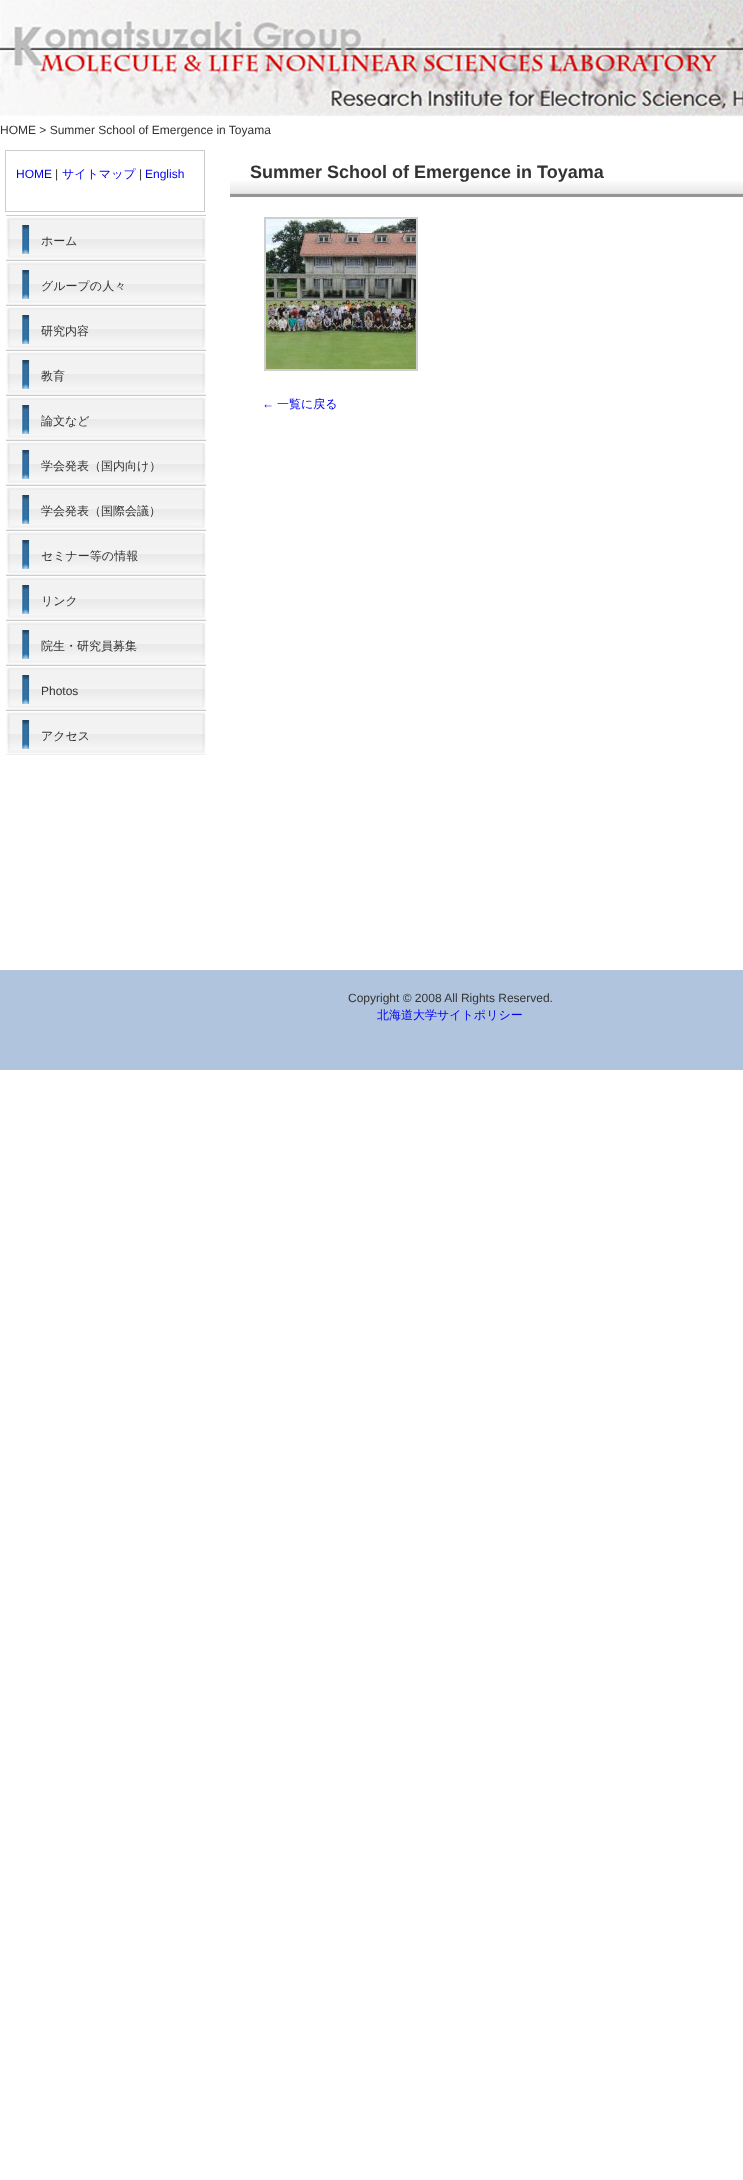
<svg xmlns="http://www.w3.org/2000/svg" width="743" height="2180">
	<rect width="100%" height="100%" fill="#FFFFFF" />
	<image x="0" y="0" width="743" height="117" href="assets/img1.png" />
	<text x="0" y="134" font-family="Liberation Sans" font-size="12" fill="#333333">HOME &gt; Summer School of Emergence in Toyama</text>
	<rect x="5.5" y="150.5" width="199" height="61" fill="none" stroke="#CCCCCC" />
	<text x="16" y="178" font-family="Liberation Sans" font-size="12" fill="#0000EE">HOME</text>
	<text x="55" y="178" font-family="Liberation Sans" font-size="12" fill="#333333">|</text>
	<text x="62" y="178" font-family="WenQuanYi Zen Hei" font-size="12" font-weight="500" fill="#0000EE">サイトマップ</text>
	<text x="139" y="178" font-family="Liberation Sans" font-size="12" fill="#333333">|</text>
	<text x="145" y="178" font-family="Liberation Sans" font-size="12" fill="#0000EE">English</text>
	<image x="6" y="215" width="200" height="45" href="assets/img2.png" />
	<text x="41" y="245" font-family="WenQuanYi Zen Hei" font-size="12" font-weight="500" fill="#333333">ホーム</text>
	<image x="6" y="260" width="200" height="45" href="assets/img2.png" />
	<text x="41" y="290" font-family="WenQuanYi Zen Hei" font-size="12" font-weight="500" fill="#333333">グループの人々</text>
	<image x="6" y="305" width="200" height="45" href="assets/img2.png" />
	<text x="41" y="335" font-family="WenQuanYi Zen Hei" font-size="12" font-weight="500" fill="#333333">研究内容</text>
	<image x="6" y="350" width="200" height="45" href="assets/img2.png" />
	<text x="41" y="380" font-family="WenQuanYi Zen Hei" font-size="12" font-weight="500" fill="#333333">教育</text>
	<image x="6" y="395" width="200" height="45" href="assets/img2.png" />
	<text x="41" y="425" font-family="WenQuanYi Zen Hei" font-size="12" font-weight="500" fill="#333333">論文など</text>
	<image x="6" y="440" width="200" height="45" href="assets/img2.png" />
	<text x="41" y="470" font-family="WenQuanYi Zen Hei" font-size="12" font-weight="500" fill="#333333">学会発表（国内向け）</text>
	<image x="6" y="485" width="200" height="45" href="assets/img2.png" />
	<text x="41" y="515" font-family="WenQuanYi Zen Hei" font-size="12" font-weight="500" fill="#333333">学会発表（国際会議）</text>
	<image x="6" y="530" width="200" height="45" href="assets/img2.png" />
	<text x="41" y="560" font-family="WenQuanYi Zen Hei" font-size="12" font-weight="500" fill="#333333">セミナー等の情報</text>
	<image x="6" y="575" width="200" height="45" href="assets/img2.png" />
	<text x="41" y="605" font-family="WenQuanYi Zen Hei" font-size="12" font-weight="500" fill="#333333">リンク</text>
	<image x="6" y="620" width="200" height="45" href="assets/img2.png" />
	<text x="41" y="650" font-family="WenQuanYi Zen Hei" font-size="12" font-weight="500" fill="#333333">院生・研究員募集</text>
	<image x="6" y="665" width="200" height="45" href="assets/img2.png" />
	<text x="41" y="695" font-family="Liberation Sans" font-size="12" fill="#333333">Photos</text>
	<image x="6" y="710" width="200" height="45" href="assets/img2.png" />
	<text x="41" y="740" font-family="WenQuanYi Zen Hei" font-size="12" font-weight="500" fill="#333333">アクセス</text>
	<image x="230" y="181" width="513" height="16" href="assets/img3.png" />
	<text x="250" y="178" font-family="Liberation Sans" font-size="18" font-weight="700" fill="#333333">Summer School of Emergence in Toyama</text>
	<rect x="265" y="218" width="152" height="152" fill="none" stroke="#CFCFCF" stroke-width="2" />
	<image x="266" y="219" width="150" height="150" href="assets/img4.png" />
	<text x="262" y="408" font-family="Liberation Sans" font-size="12" fill="#0000EE">←</text>
	<text x="277" y="408" font-family="WenQuanYi Zen Hei" font-size="12" font-weight="500" fill="#0000EE">一覧に戻る</text>
	<rect x="0" y="970" width="743" height="100" fill="#B0C4DE" />
	<text x="348" y="1002" font-family="Liberation Sans" font-size="12" fill="#333333">Copyright © 2008 All Rights Reserved.</text>
	<text x="377" y="1019" font-family="WenQuanYi Zen Hei" font-size="12" font-weight="500" fill="#0000EE">北海道大学サイトポリシー</text>
</svg>
